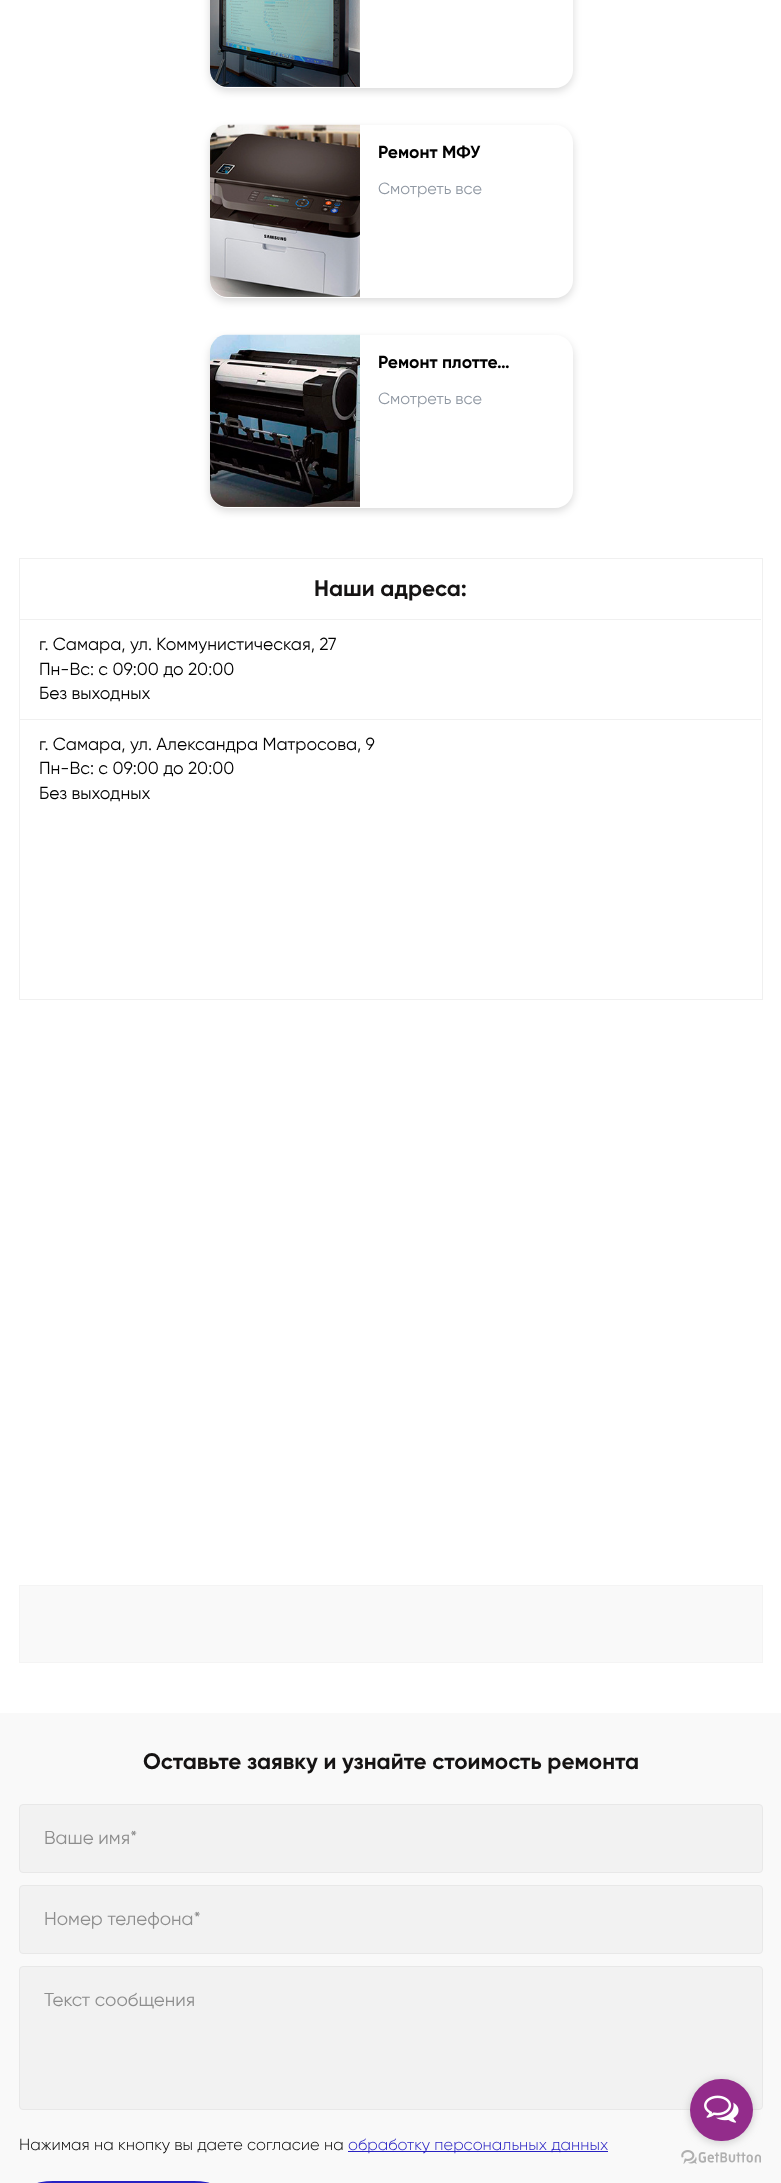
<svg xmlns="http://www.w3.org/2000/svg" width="781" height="2183">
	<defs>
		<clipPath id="clip1"><path d="M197 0H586V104H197ZM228-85H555C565-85 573-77 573-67V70C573 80 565 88 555 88H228C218 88 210 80 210 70V-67C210-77 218-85 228-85Z" clip-rule="evenodd" /></clipPath>
		<clipPath id="clip2"><path d="M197 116H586V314H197ZM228 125H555C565 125 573 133 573 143V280C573 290 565 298 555 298H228C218 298 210 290 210 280V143C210 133 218 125 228 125Z" clip-rule="evenodd" /></clipPath>
		<clipPath id="clip3"><path d="M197 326H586V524H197ZM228 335H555C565 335 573 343 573 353V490C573 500 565 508 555 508H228C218 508 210 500 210 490V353C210 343 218 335 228 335Z" clip-rule="evenodd" /></clipPath>
	</defs>
	<rect width="100%" height="100%" fill="#FFFFFF" />
	<g clip-path="url(#clip1)">
		<rect x="210" y="-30" width="363" height="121" rx="18" fill="#000000" fill-opacity="0.15" filter="blur(4px)" />
	</g>
	<image x="210" y="0" width="150" height="87" href="assets/img1.png" />
	<g clip-path="url(#clip2)">
		<rect x="210" y="129" width="363" height="172" rx="18" fill="#000000" fill-opacity="0.15" filter="blur(4px)" />
	</g>
	<image x="210" y="124" width="150" height="173" href="assets/img2.png" />
	<text x="378" y="158" font-family="Gilroy" font-size="17.5" font-weight="700" fill="#010101">Ремонт МФУ</text>
	<text x="378" y="194" font-family="Gilroy" font-size="16.25" fill="#9098A3">Смотреть все</text>
	<g clip-path="url(#clip3)">
		<rect x="210" y="339" width="363" height="172" rx="18" fill="#000000" fill-opacity="0.15" filter="blur(4px)" />
	</g>
	<image x="210" y="334" width="150" height="173" href="assets/img3.png" />
	<text x="378" y="368" font-family="Gilroy" font-size="17.5" font-weight="700" fill="#010101">Ремонт плотте…</text>
	<text x="378" y="404" font-family="Gilroy" font-size="16.25" fill="#9098A3">Смотреть все</text>
	<rect x="19.5" y="558.5" width="743" height="441" fill="none" stroke="#F0F0F0" />
	<rect x="20" y="619" width="741" height="1" fill="#F0F0F0" />
	<text x="314" y="596" font-family="Gilroy" font-size="22.5" font-weight="700" fill="#151313">Наши адреса:</text>
	<g font-family="Gilroy" font-size="17.5" fill="#010101">
		<text x="39" y="650">г. Самара, ул. Коммунистическая, 27</text>
		<text x="39" y="675">Пн-Вс: с 09:00 до 20:00</text>
		<text x="39" y="699">Без выходных</text>
	</g>
	<rect x="20" y="719" width="741" height="1" fill="#F0F0F0" />
	<g font-family="Gilroy" font-size="17.5" fill="#010101">
		<text x="39" y="750">г. Самара, ул. Александра Матросова, 9</text>
		<text x="39" y="774">Пн-Вс: с 09:00 до 20:00</text>
		<text x="39" y="799">Без выходных</text>
	</g>
	<rect x="19.5" y="1585.5" width="743" height="77" fill="#F9F9F9" stroke="#F4F4F4" />
	<rect x="0" y="1713" width="781" height="470" fill="#F9F9F9" />
	<text x="143" y="1769" font-family="Gilroy" font-size="22.5" font-weight="700" fill="#151313">Оставьте заявку и узнайте стоимость ремонта</text>
	<rect x="19.5" y="1804.5" width="743" height="68" rx="3.5" fill="#F2F2F2" stroke="#E8E8E8" />
	<text x="44" y="1844" font-family="Gilroy" font-size="18.75" fill="#8D8D8D">Ваше имя*</text>
	<rect x="19.5" y="1885.5" width="743" height="68" rx="3.5" fill="#F2F2F2" stroke="#E8E8E8" />
	<text x="44" y="1925" font-family="Gilroy" font-size="18.75" fill="#8D8D8D">Номер телефона*</text>
	<rect x="19.5" y="1966.5" width="743" height="143" rx="3.5" fill="#F2F2F2" stroke="#E8E8E8" />
	<text x="44" y="2006" font-family="Gilroy" font-size="18.75" fill="#8D8D8D">Текст сообщения</text>
	<text x="19" y="2150" font-family="Gilroy" font-size="16.25" font-weight="300" fill="#010101">Нажимая на кнопку вы даете согласие на</text>
	<rect x="348" y="2151" width="260" height="1" fill="#2922C3" />
	<text x="348" y="2150" font-family="Gilroy" font-size="16.25" font-weight="300" fill="#2922C3">обработку персональных данных</text>
	<rect x="19" y="2181" width="209" height="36" rx="34" fill="#2922C3" />
	<image x="681" y="2150" width="80" height="14" href="assets/img5.png" />
	<rect x="690" y="2080" width="63" height="63" rx="31.5" fill="#888888" fill-opacity="0.4" filter="blur(4.5px)" />
	<rect x="690" y="2079" width="63" height="62" rx="31" fill="#932C8B" />
	<image x="704" y="2095" width="35" height="28" href="assets/img4.png" />
</svg>
